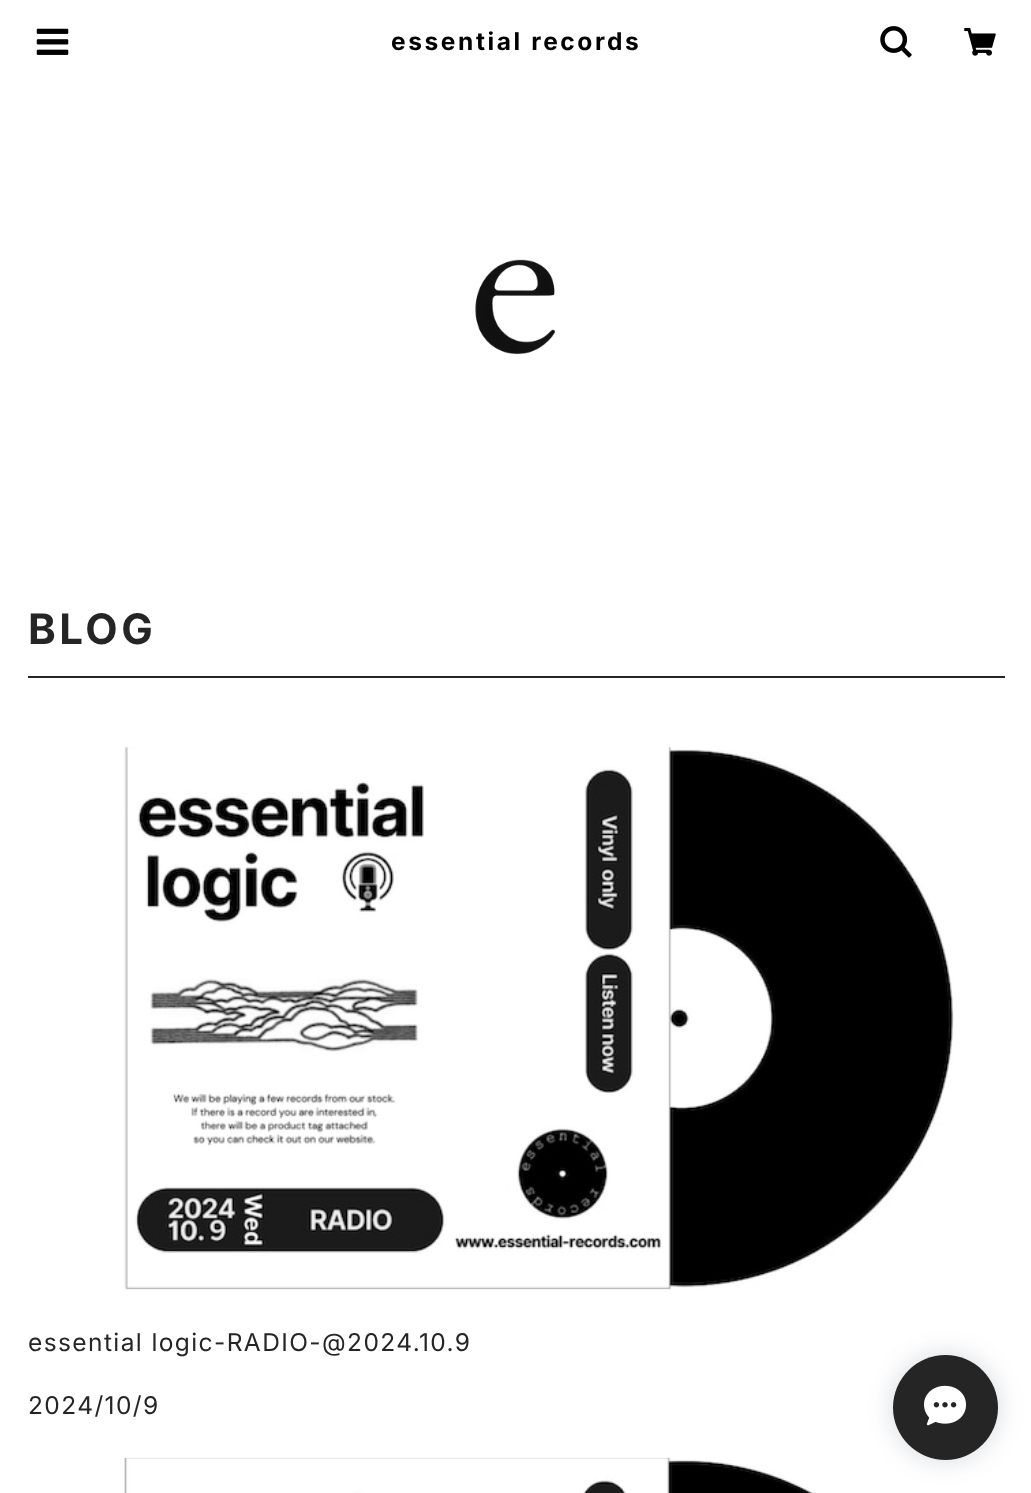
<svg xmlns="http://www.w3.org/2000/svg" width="1031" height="1493">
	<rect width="100%" height="100%" fill="#FFFFFF" />
	<image x="36" y="28" width="33" height="27" href="assets/img1.png" />
	<text x="391" y="50" font-family="Inter" font-size="24.5" font-weight="700" letter-spacing="2.6" fill="#000000">essential records</text>
	<image x="880" y="26" width="32" height="32" href="assets/img2.png" />
	<image x="964" y="27" width="32" height="29" href="assets/img3.png" />
	<image x="475" y="259" width="81" height="96" href="assets/img4.png" />
	<rect x="28" y="676" width="977" height="2" fill="#252525" />
	<text x="28" y="644" font-family="Inter" font-size="42" font-weight="700" letter-spacing="3.5" fill="#252525">BLOG</text>
	<image x="124" y="747" width="830" height="543" href="assets/img5.png" />
	<g font-family="Inter" font-size="24.5" letter-spacing="1.4" fill="#252525">
		<text x="28" y="1351">essential logic-RADIO-@2024.10.9</text>
		<text x="28" y="1414">2024/10/9</text>
	</g>
	<image x="124" y="1457" width="691" height="36" href="assets/img6.png" />
	<rect x="893" y="1355" width="105" height="105" rx="52.5" fill="#334258" fill-opacity="0.2" filter="blur(13px)" />
	<circle cx="945.5" cy="1407.5" r="52.5" fill="#252525" />
	<image x="924" y="1385" width="42" height="41" href="assets/img7.png" />
</svg>
